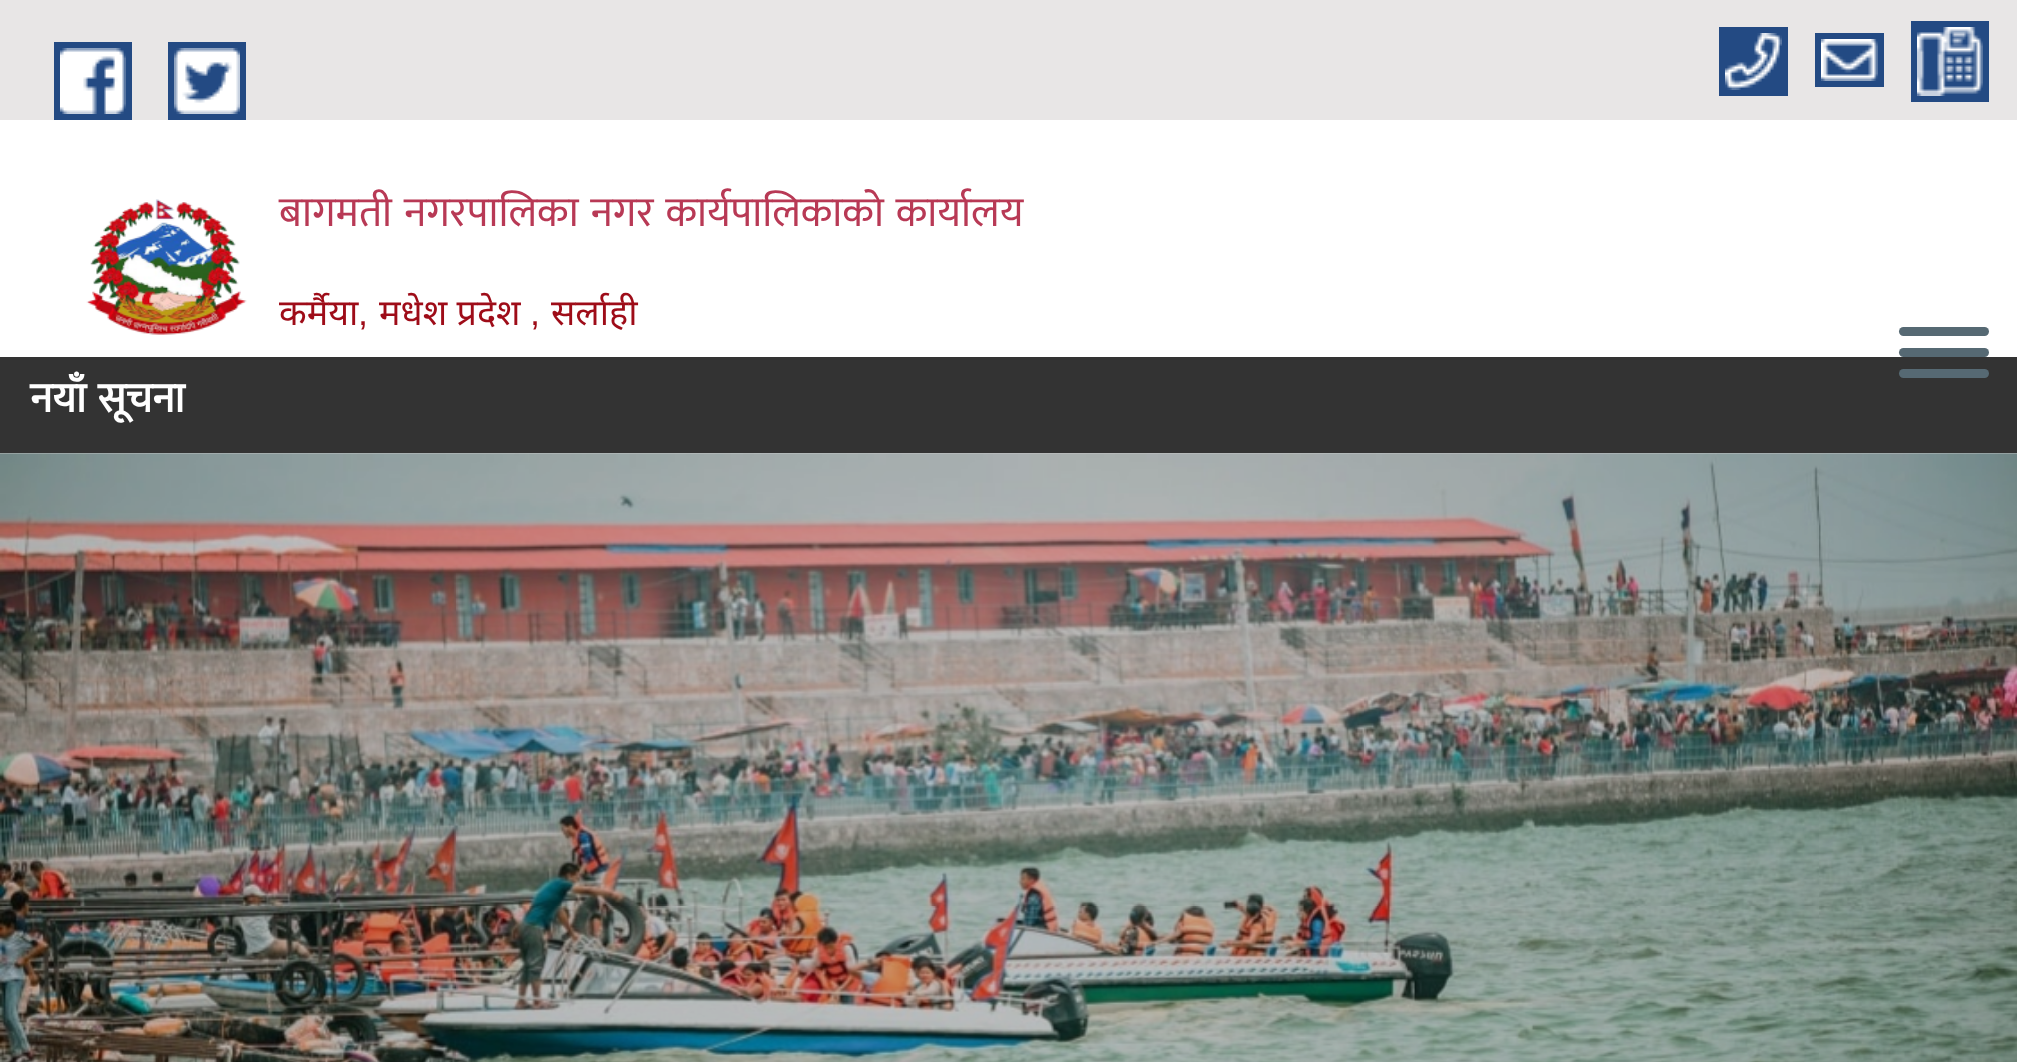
<svg xmlns="http://www.w3.org/2000/svg" width="2017" height="1062">
	<rect width="100%" height="100%" fill="#FFFFFF" />
	<rect x="0" y="453" width="2017" height="1" fill="#CCCCCC" />
	<rect x="0" y="0" width="2017" height="120" fill="#E8E6E6" />
	<rect x="54" y="42" width="78" height="78" fill="#234A83" />
	<rect x="168" y="42" width="78" height="78" fill="#234A83" />
	<image x="60" y="48" width="66" height="66" href="assets/img1.png" />
	<image x="174" y="48" width="66" height="66" href="assets/img2.png" />
	<rect x="1719" y="27" width="69" height="69" fill="#234A83" />
	<rect x="1911" y="21" width="78" height="81" fill="#234A83" />
	<image x="1725" y="33" width="57" height="57" href="assets/img3.png" />
	<rect x="1815" y="33" width="69" height="54" fill="#234A83" />
	<image x="1917" y="27" width="66" height="69" href="assets/img4.png" />
	<image x="1821" y="39" width="57" height="42" href="assets/img5.png" />
	<image x="86" y="199" width="161" height="136" href="assets/img6.png" />
	<text x="279" y="226" word-spacing="2.5" font-family="Mukta" font-size="42" fill="#B83955">बागमती नगरपालिका नगर कार्यपालिकाको कार्यालय</text>
	<text x="279" y="325" font-family="Noto Sans" font-size="36" fill="#9E0C18">कर्मैया</text>
	<text x="358" y="325" font-family="Liberation Sans" font-size="36" fill="#9E0C18">,</text>
	<text x="379" y="325" font-family="Noto Sans" font-size="36" fill="#9E0C18">मधेश प्रदेश</text>
	<text x="530" y="325" font-family="Liberation Sans" font-size="36" fill="#9E0C18">,</text>
	<text x="551" y="325" font-family="Noto Sans" font-size="36" fill="#9E0C18">सर्लाही</text>
	<rect x="1899" y="327" width="90" height="9" rx="4.5" fill="#566973" />
	<rect x="1899" y="348" width="90" height="9" rx="4.5" fill="#566973" />
	<rect x="0" y="357" width="2017" height="96" fill="#333333" />
	<rect x="1899" y="369" width="90" height="9" rx="4.5" fill="#566973" />
	<text x="30" y="412" word-spacing="2.5" font-family="Mukta" font-size="42" font-weight="700" fill="#FFFFFF">नयाँ सूचना</text>
	<image x="0" y="453" width="2017" height="609" href="assets/img7.png" />
</svg>
